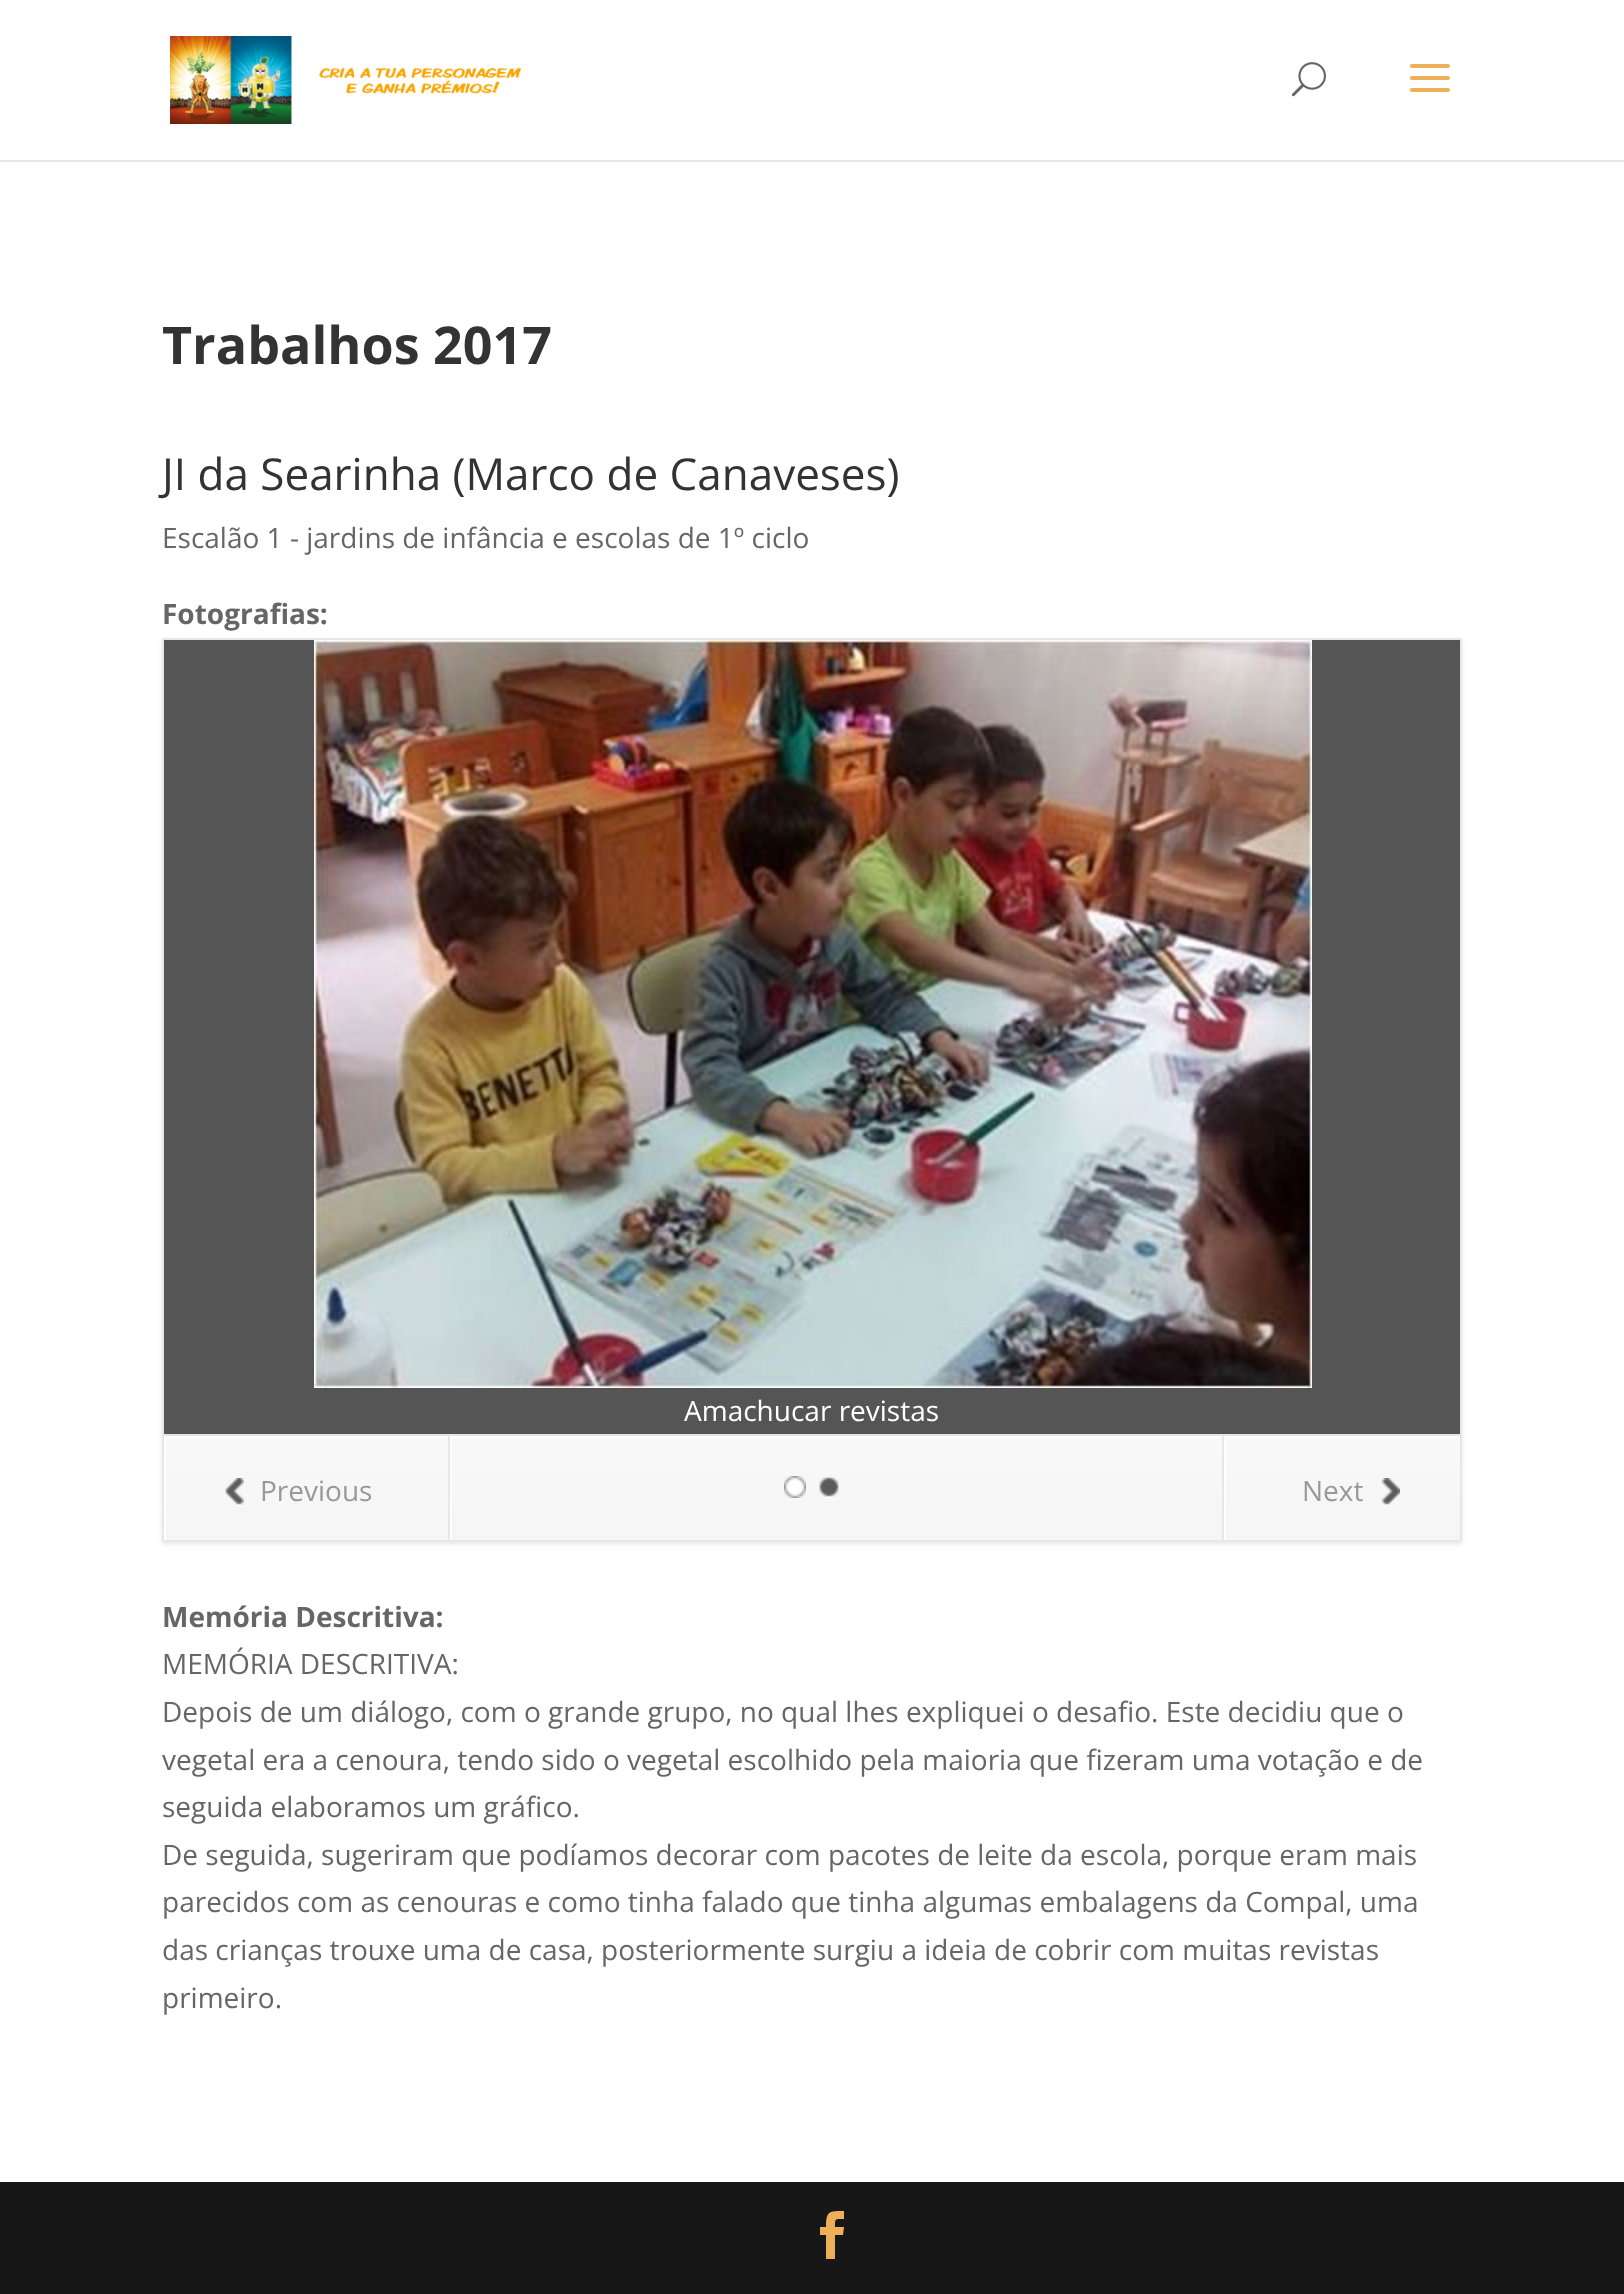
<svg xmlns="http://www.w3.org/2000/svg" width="1624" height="2294">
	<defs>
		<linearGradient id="g1" gradientUnits="userSpaceOnUse" x1="812" y1="1436" x2="812" y2="1540"><stop offset="0" stop-color="#F9F9F9" /><stop offset="1" stop-color="#F5F5F5" /></linearGradient>
		<clipPath id="clip1"><rect x="164" y="1436" width="1296" height="104" /></clipPath>
	</defs>
	<rect width="100%" height="100%" fill="#FFFFFF" />
	<rect x="0" y="160" width="1624" height="2" fill="#E6E6E6" />
	<image x="170" y="36" width="352" height="88" href="assets/img1.png" />
	<image x="1291" y="62" width="35" height="35" href="assets/img2.png" />
	<image x="1410" y="64" width="40" height="28" href="assets/img3.png" />
	<text x="162" y="364" font-family="Open Sans" font-size="52" font-weight="700" fill="#333333">Trabalhos 2017</text>
	<text x="162" y="490" font-family="Open Sans" font-size="44" fill="#333333">JI da Searinha (Marco de Canaveses)</text>
	<text x="162" y="548" font-family="Open Sans" font-size="28" fill="#666666">Escalão 1 - jardins de infância e escolas de 1º ciclo</text>
	<text x="162" y="624" font-family="Open Sans" font-size="28" font-weight="700" fill="#666666">Fotografias:</text>
	<rect x="162" y="640" width="1300" height="904" fill="#000000" fill-opacity="0.1" filter="blur(2px)" />
	<rect x="163" y="639" width="1298" height="902" fill="none" stroke="#E7E7E7" stroke-width="2" />
	<rect x="164" y="640" width="1296" height="794" fill="#555555" />
	<image x="314" y="640" width="998" height="748" href="assets/img4.png" />
	<text x="684" y="1421" font-family="Open Sans" font-size="28" fill="#FFFFFF">Amachucar revistas</text>
	<rect x="166" y="1438" width="1294" height="102" fill="url(#g1)" />
	<g clip-path="url(#clip1)">
		<path d="M-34 1238H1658V1738H-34ZM166 1438H1462V1542H166Z" fill="#FFFFFF" fill-rule="evenodd" />
	</g>
	<image x="784" y="1476" width="22" height="22" href="assets/img5.png" />
	<image x="819" y="1477" width="20" height="21" href="assets/img6.png" />
	<rect x="450" y="1436" width="2" height="104" fill="#FFFFFF" />
	<rect x="448" y="1436" width="2" height="104" fill="#E7E7E7" />
	<image x="225" y="1478" width="19" height="28" href="assets/img7.png" />
	<text x="260" y="1501" font-family="Open Sans" font-size="28" fill="#999999">Previous</text>
	<rect x="1222" y="1436" width="2" height="104" fill="#E7E7E7" />
	<rect x="1224" y="1436" width="2" height="104" fill="#FFFFFF" />
	<text x="1302" y="1501" font-family="Open Sans" font-size="28" fill="#999999">Next</text>
	<image x="1381" y="1478" width="19" height="28" href="assets/img8.png" />
	<text x="162" y="1627" font-family="Open Sans" font-size="28" font-weight="700" fill="#666666">Memória Descritiva:</text>
	<g font-family="Open Sans" font-size="28" fill="#666666">
		<text x="162" y="1674">MEMÓRIA DESCRITIVA:</text>
		<text x="162" y="1722">Depois de um diálogo, com o grande grupo, no qual lhes expliquei o desafio. Este decidiu que o</text>
		<text x="162" y="1770">vegetal era a cenoura, tendo sido o vegetal escolhido pela maioria que fizeram uma votação e de</text>
		<text x="162" y="1817">seguida elaboramos um gráfico.</text>
		<text x="162" y="1865">De seguida, sugeriram que podíamos decorar com pacotes de leite da escola, porque eram mais</text>
		<text x="162" y="1912">parecidos com as cenouras e como tinha falado que tinha algumas embalagens da Compal, uma</text>
		<text x="162" y="1960">das crianças trouxe uma de casa, posteriormente surgiu a ideia de cobrir com muitas revistas</text>
		<text x="162" y="2008">primeiro.</text>
	</g>
	<rect x="0" y="2182" width="1624" height="112" fill="#171717" />
	<path d="M826 2259H835V2235H843L844 2227H835C835 2218 835 2219 844 2219V2211C829 2211 826 2211 826 2227H820V2235H826Z" fill="#EDB059" />
</svg>
